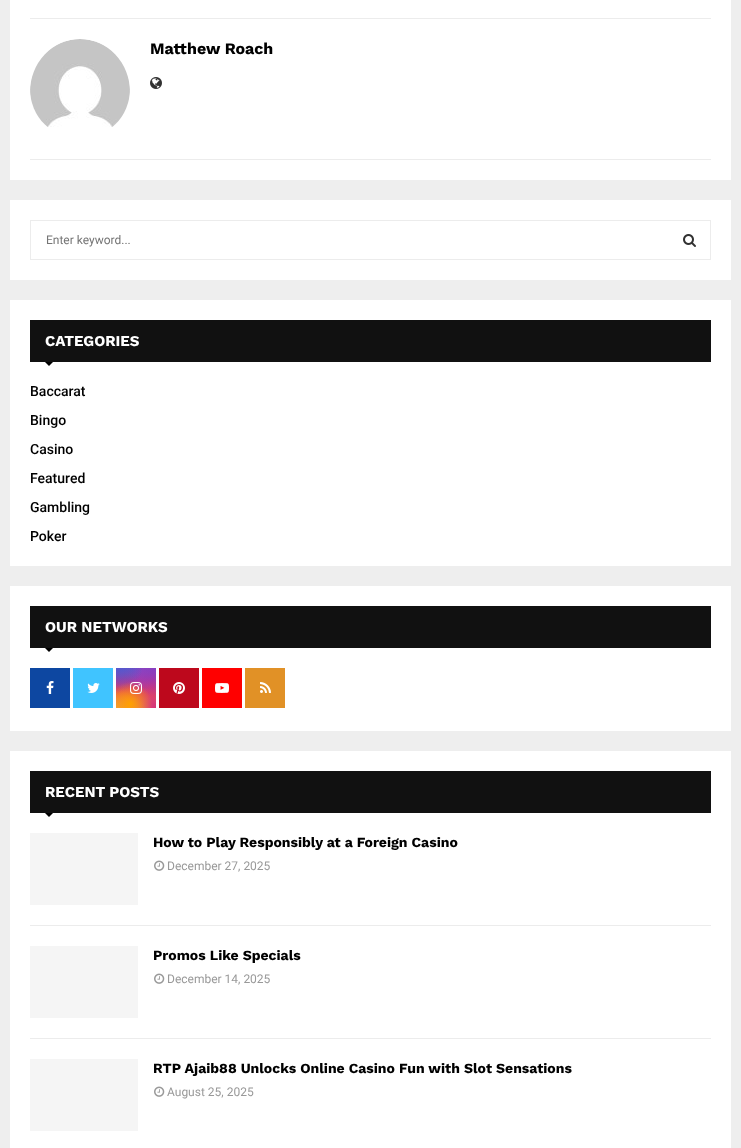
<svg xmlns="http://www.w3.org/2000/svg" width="741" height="1148">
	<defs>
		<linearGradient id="g1" gradientUnits="userSpaceOnUse" x1="136" y1="668" x2="136" y2="708"><stop offset="0" stop-color="#6559CA" /><stop offset="0.3" stop-color="#BC318F" /><stop offset="0.5" stop-color="#E33F5F" /><stop offset="0.7" stop-color="#F77638" /><stop offset="1" stop-color="#FEC66D" /></linearGradient>
		<radialGradient id="g2" gradientUnits="userSpaceOnUse" cx="156" cy="708" r="57"><stop offset="0" stop-color="#D43178" /><stop offset="1" stop-color="#D43178" stop-opacity="0" /></radialGradient>
		<radialGradient id="g3" gradientUnits="userSpaceOnUse" cx="0" cy="0" r="1" gradientTransform="matrix(34 0 0 68 140 660)"><stop offset="0" stop-color="#8F44C7" /><stop offset="0.5" stop-color="#8F44C7" stop-opacity="0" /></radialGradient>
		<radialGradient id="g4" gradientUnits="userSpaceOnUse" cx="156" cy="668" r="57"><stop offset="0" stop-color="#893DC2" /><stop offset="0.5" stop-color="#893DC2" stop-opacity="0" /></radialGradient>
		<radialGradient id="g5" gradientUnits="userSpaceOnUse" cx="0" cy="0" r="1" gradientTransform="matrix(45 0 0 85 124 648)"><stop offset="0" stop-color="#5258CF" /><stop offset="0.5" stop-color="#5258CF" stop-opacity="0" /></radialGradient>
		<radialGradient id="g6" gradientUnits="userSpaceOnUse" cx="0" cy="0" r="1" gradientTransform="matrix(57 0 0 71 116 658)"><stop offset="0" stop-color="#5258CF" /><stop offset="0.5" stop-color="#5258CF" stop-opacity="0" /></radialGradient>
		<radialGradient id="g7" gradientUnits="userSpaceOnUse" cx="116" cy="724" r="69"><stop offset="0" stop-color="#EFA11C" /><stop offset="0.5" stop-color="#EFA11C" stop-opacity="0" /></radialGradient>
		<radialGradient id="g8" gradientUnits="userSpaceOnUse" cx="130" cy="704" r="44"><stop offset="0" stop-color="#FFA100" /><stop offset="0.5" stop-color="#FFA100" stop-opacity="0" /></radialGradient>
	</defs>
	<rect width="100%" height="100%" fill="#EEEEEE" />
	<rect x="10" y="0" width="721" height="180" fill="#FFFFFF" />
	<rect x="30" y="18" width="681" height="1" fill="#ECECEC" />
	<rect x="30" y="159" width="681" height="1" fill="#ECECEC" />
	<image x="30" y="39" width="100" height="88" href="assets/img1.png" />
	<text x="150" y="54" font-family="Work Sans" font-size="16" font-weight="700" fill="#000000">Matthew Roach</text>
	<image x="150" y="77" width="12" height="12" href="assets/img2.png" />
	<rect x="10" y="200" width="721" height="80" fill="#FFFFFF" />
	<rect x="30.5" y="220.5" width="680" height="39" fill="none" stroke="#ECECEC" />
	<text x="46" y="244" font-family="Roboto" font-size="12" fill="#757575">Enter keyword...</text>
	<image x="683" y="234" width="13" height="13" href="assets/img3.png" />
	<rect x="10" y="300" width="721" height="266" fill="#FFFFFF" />
	<rect x="30" y="320" width="681" height="42" fill="#111111" />
	<text x="45" y="346" font-family="Work Sans" font-size="15" font-weight="700" fill="#FFFFFF">CATEGORIES</text>
	<path d="M45 362H53L49 366Z" fill="#000000" />
	<g font-family="Roboto" font-size="14" font-weight="500" fill="#000000">
		<text x="30" y="396">Baccarat</text>
		<text x="30" y="425">Bingo</text>
		<text x="30" y="454">Casino</text>
		<text x="30" y="483">Featured</text>
		<text x="30" y="512">Gambling</text>
		<text x="30" y="541">Poker</text>
	</g>
	<rect x="10" y="586" width="721" height="145" fill="#FFFFFF" />
	<rect x="30" y="606" width="681" height="42" fill="#111111" />
	<text x="45" y="632" font-family="Work Sans" font-size="15" font-weight="700" fill="#FFFFFF">OUR NETWORKS</text>
	<path d="M45 648H53L49 652Z" fill="#000000" />
	<rect x="30" y="668" width="40" height="40" fill="#0D47A1" />
	<image x="46" y="681" width="8" height="13" href="assets/img4.png" />
	<rect x="73" y="668" width="40" height="40" fill="#40C4FF" />
	<image x="87" y="683" width="13" height="10" href="assets/img5.png" />
	<rect x="116" y="668" width="40" height="40" fill="url(#g1)" />
	<rect x="116" y="668" width="40" height="40" fill="url(#g2)" />
	<rect x="125" y="668" width="30" height="25" fill="url(#g3)" />
	<rect x="131" y="668" width="25" height="28" fill="url(#g4)" />
	<rect x="116" y="668" width="26" height="22" fill="url(#g5)" />
	<rect x="116" y="668" width="26" height="25" fill="url(#g6)" />
	<rect x="116" y="690" width="29" height="18" fill="url(#g7)" />
	<rect x="116" y="682" width="36" height="26" fill="url(#g8)" />
	<image x="130" y="682" width="12" height="12" href="assets/img6.png" />
	<rect x="159" y="668" width="40" height="40" fill="#BD081C" />
	<image x="173" y="682" width="12" height="12" href="assets/img7.png" />
	<rect x="202" y="668" width="40" height="40" fill="#FF0000" />
	<image x="215" y="683" width="14" height="10" href="assets/img8.png" />
	<rect x="245" y="668" width="40" height="40" fill="#E19126" />
	<image x="260" y="682" width="11" height="11" href="assets/img9.png" />
	<rect x="10" y="751" width="721" height="397" fill="#FFFFFF" />
	<rect x="30" y="771" width="681" height="42" fill="#111111" />
	<text x="45" y="797" font-family="Work Sans" font-size="15" font-weight="700" fill="#FFFFFF">RECENT POSTS</text>
	<path d="M45 813H53L49 817Z" fill="#000000" />
	<rect x="30" y="925" width="681" height="1" fill="#ECECEC" />
	<rect x="30" y="833" width="108" height="72" fill="#F5F5F5" />
	<text x="153" y="847" font-family="Work Sans" font-size="14" font-weight="700" fill="#000000">How to Play Responsibly at a Foreign Casino</text>
	<image x="154" y="860" width="11" height="11" href="assets/img10.png" />
	<text x="167" y="870" font-family="Roboto" font-size="12" fill="#999999">December 27, 2025</text>
	<rect x="30" y="1038" width="681" height="1" fill="#ECECEC" />
	<rect x="30" y="946" width="108" height="72" fill="#F5F5F5" />
	<text x="153" y="960" font-family="Work Sans" font-size="14" font-weight="700" fill="#000000">Promos Like Specials</text>
	<image x="154" y="973" width="11" height="11" href="assets/img10.png" />
	<text x="167" y="983" font-family="Roboto" font-size="12" fill="#999999">December 14, 2025</text>
	<rect x="30" y="1059" width="108" height="72" fill="#F5F5F5" />
	<text x="153" y="1073" font-family="Work Sans" font-size="14" font-weight="700" fill="#000000">RTP Ajaib88 Unlocks Online Casino Fun with Slot Sensations</text>
	<image x="154" y="1086" width="11" height="11" href="assets/img10.png" />
	<text x="167" y="1096" font-family="Roboto" font-size="12" fill="#999999">August 25, 2025</text>
</svg>
